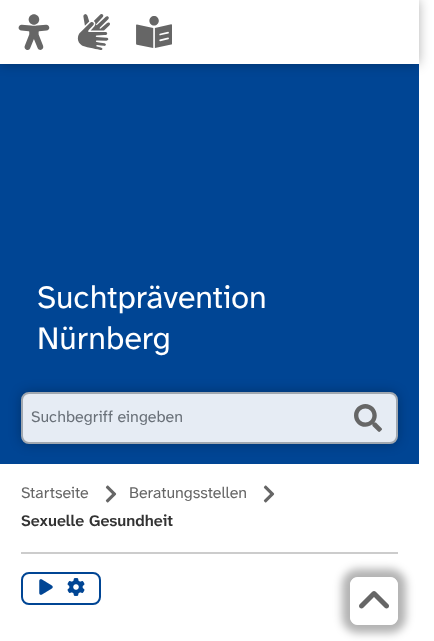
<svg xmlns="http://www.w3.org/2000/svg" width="434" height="641">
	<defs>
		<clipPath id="clip1"><path d="M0 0H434V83H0ZM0 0H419V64H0Z" clip-rule="evenodd" /></clipPath>
		<clipPath id="clip2"><path d="M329 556H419V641H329ZM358 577H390C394.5 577 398 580.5 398 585V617C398 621.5 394.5 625 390 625H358C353.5 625 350 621.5 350 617V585C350 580.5 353.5 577 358 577Z" clip-rule="evenodd" /></clipPath>
	</defs>
	<rect width="100%" height="100%" fill="#FFFFFF" />
	<rect x="0" y="64" width="419" height="400" fill="#004594" />
	<g clip-path="url(#clip1)">
		<rect x="0" y="0" width="419" height="64" fill="#000000" fill-opacity="0.3" filter="blur(6px)" />
	</g>
	<image x="18" y="14" width="32" height="36" href="assets/img1.png" />
	<image x="77" y="14" width="33" height="36" href="assets/img2.png" />
	<image x="136" y="16" width="36" height="32" href="assets/img3.png" />
	<g font-family="Atkinson Hyperlegible Next" font-size="32.25" fill="#FFFFFF">
		<text x="37" y="308">Suchtprävention</text>
		<text x="37" y="349">Nürnberg</text>
	</g>
	<rect x="21" y="392" width="377" height="52" rx="8" fill="#00070F" fill-opacity="0.3" filter="blur(6px)" />
	<rect x="22" y="393" width="375" height="50" rx="7" fill="#E6ECF4" stroke="#A1A8B0" stroke-width="2" />
	<text x="31" y="422" font-family="Atkinson Hyperlegible Next" font-size="16" fill="#697078">Suchbegriff eingeben</text>
	<image x="354" y="404" width="28" height="28" href="assets/img4.png" />
	<text x="21" y="498" font-family="Atkinson Hyperlegible Next" font-size="16" fill="#666666">Startseite</text>
	<image x="105" y="485" width="12" height="18" href="assets/img5.png" />
	<text x="129" y="498" font-family="Atkinson Hyperlegible Next" font-size="16" fill="#666666">Beratungsstellen</text>
	<image x="263" y="485" width="12" height="18" href="assets/img5.png" />
	<text x="21" y="526" font-family="Atkinson Hyperlegible Next" font-size="16" font-weight="600" fill="#333333">Sexuelle Gesundheit</text>
	<rect x="21" y="552" width="377" height="2" fill="#CCCCCC" />
	<rect x="22" y="573" width="78" height="31" rx="7" fill="none" stroke="#004594" stroke-width="2" />
	<image x="39" y="579" width="14" height="16" href="assets/img6.png" />
	<image x="67" y="578" width="18" height="18" href="assets/img7.png" />
	<g clip-path="url(#clip2)">
		<rect x="342" y="569" width="64" height="64" rx="16" fill="#000000" fill-opacity="0.3" filter="blur(4px)" />
	</g>
	<path d="M390 625H358C354 625 350 621 350 617V585C350 581 354 577 358 577H390C394 577 398 581 398 585V617C398 621 394 625 390 625Z" fill="#FFFFFF" fill-opacity="0.8" />
	<image x="359" y="591" width="30" height="18" href="assets/img8.png" />
</svg>
